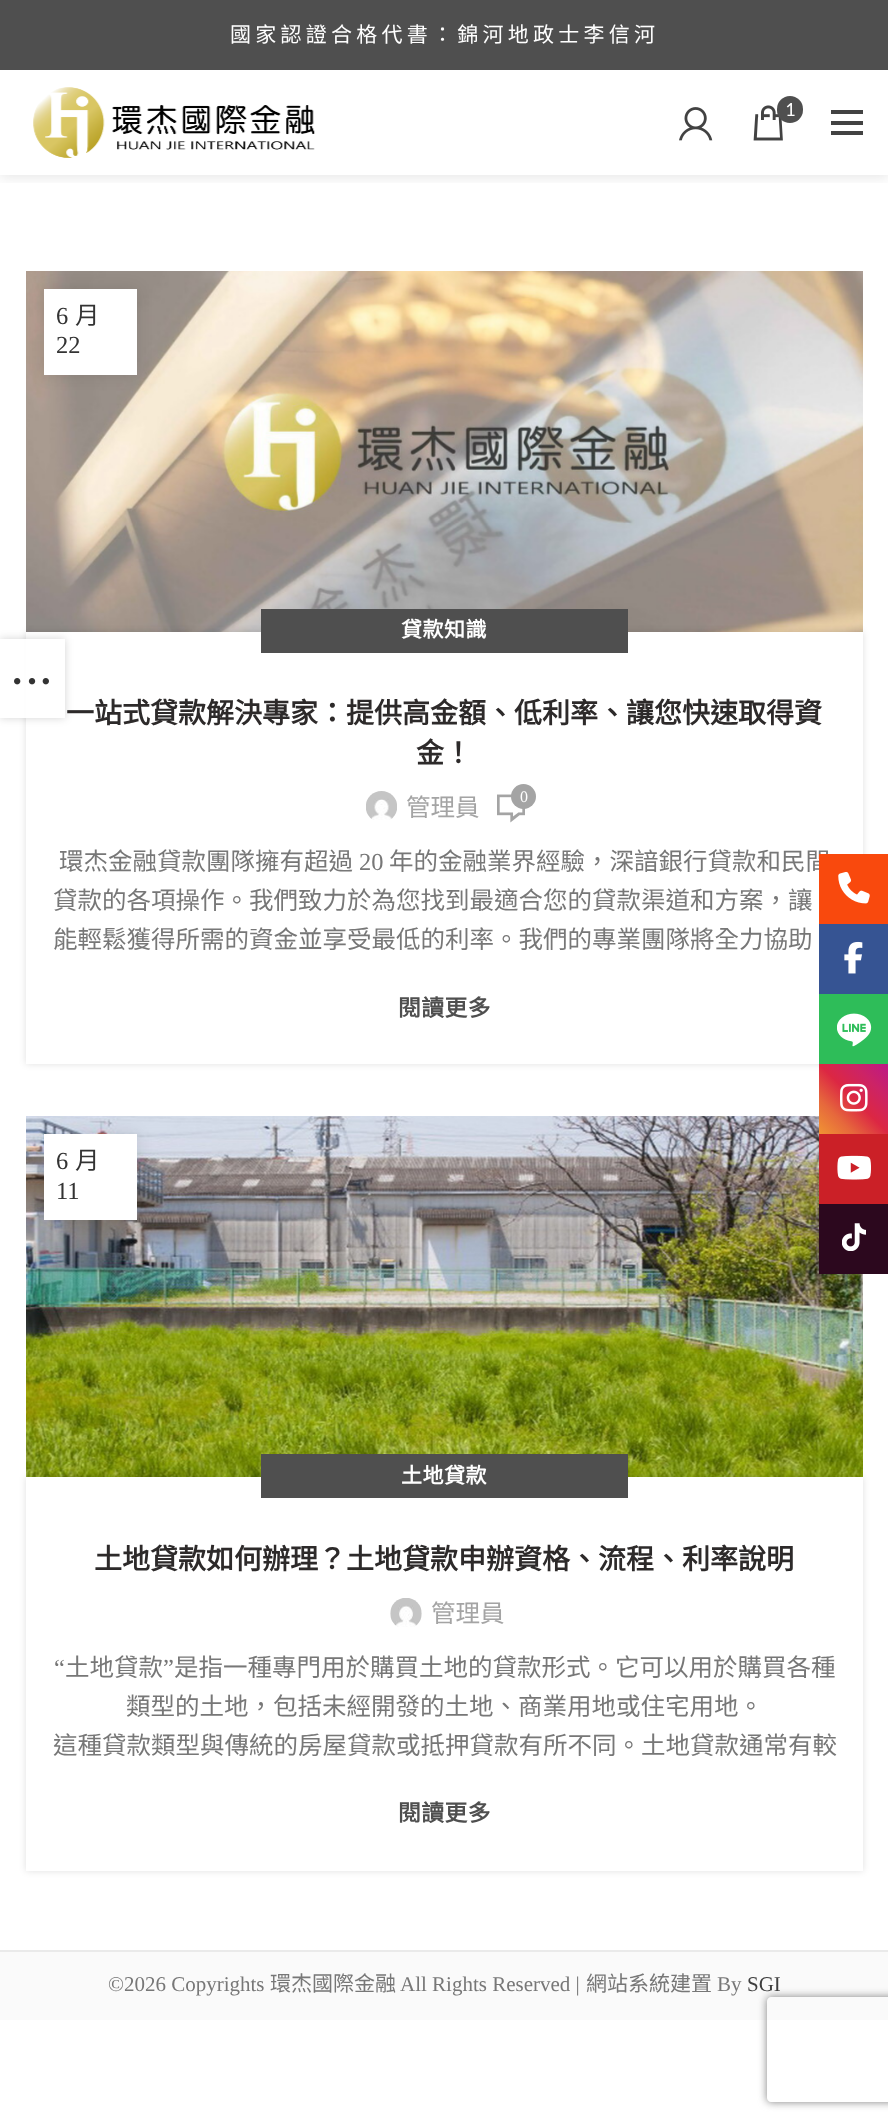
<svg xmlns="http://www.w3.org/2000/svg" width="888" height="2126">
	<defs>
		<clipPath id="clip1"><path d="M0 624H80V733H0ZM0 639H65V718H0Z" clip-rule="evenodd" /></clipPath>
		<clipPath id="clip2"><rect x="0" y="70" width="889" height="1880" /></clipPath>
		<clipPath id="clip3"><rect x="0" y="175" width="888" height="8" /></clipPath>
		<linearGradient id="g1" gradientUnits="userSpaceOnUse" x1="819" y1="1134" x2="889" y2="1064"><stop offset="0" stop-color="#F09433" /><stop offset="0.25" stop-color="#E6683C" /><stop offset="0.5" stop-color="#DC2743" /><stop offset="0.75" stop-color="#CC2366" /><stop offset="1" stop-color="#BC1888" /></linearGradient>
		<clipPath id="clip4"><path d="M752 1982H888V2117H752ZM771 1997H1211C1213 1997 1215 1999 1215 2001V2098C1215 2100 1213 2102 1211 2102H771C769 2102 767 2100 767 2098V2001C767 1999 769 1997 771 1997Z" clip-rule="evenodd" /></clipPath>
	</defs>
	<rect width="100%" height="100%" fill="#FFFFFF" />
	<rect x="0" y="0" width="888" height="70" fill="#4F4F4F" />
	<text x="230" y="42" font-family="Noto Sans CJK TC" font-size="21" letter-spacing="4.25" fill="#FFFFFF">國家認證合格代書：錦河地政士李信河</text>
	<image x="26" y="271" width="837" height="361" href="assets/img5.png" />
	<rect x="26" y="632" width="837" height="432" fill="#000000" fill-opacity="0.12" filter="blur(3.5px)" />
	<rect x="26" y="632" width="837" height="432" fill="#FFFFFF" />
	<g clip-path="url(#clip1)">
		<rect x="0" y="639" width="65" height="79" fill="#000000" fill-opacity="0.17" filter="blur(4.5px)" />
	</g>
	<rect x="0" y="639" width="65" height="79" fill="#FFFFFF" fill-opacity="0.9" />
	<image x="14" y="678" width="35" height="7" href="assets/img1.png" />
	<g clip-path="url(#clip2)">
		<g clip-path="url(#clip3)">
			<rect x="0" y="72" width="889" height="105" fill="#000000" fill-opacity="0.1" filter="blur(7px)" />
		</g>
	</g>
	<image x="33" y="87" width="282" height="71" href="assets/img2.png" />
	<image x="679" y="107" width="34" height="34" href="assets/img3.png" />
	<image x="753" y="105" width="30" height="36" href="assets/img4.png" />
	<rect x="777" y="96" width="26" height="27" rx="13" fill="#4F4F4F" />
	<text x="785" y="116" font-family="Lato" font-size="18" fill="#FFFFFF">1</text>
	<rect x="831" y="121" width="32" height="4" fill="#424242" />
	<rect x="831" y="110" width="32" height="4" fill="#424242" />
	<rect x="831" y="131" width="32" height="4" fill="#424242" />
	<rect x="44" y="289" width="93" height="86" fill="#000000" fill-opacity="0.1" filter="blur(8px)" />
	<rect x="44" y="289" width="93" height="86" fill="#FFFFFF" />
	<text x="56" y="324" font-family="Liberation Serif" font-size="24.5" letter-spacing="0.5" fill="#333333">6</text>
	<text x="75" y="324" font-family="Noto Sans CJK TC" font-size="24.5" letter-spacing="0.5" fill="#333333">月</text>
	<text x="56" y="353" font-family="Liberation Serif" font-size="24.5" fill="#333333">22</text>
	<rect x="261" y="609" width="367" height="44" fill="#4F4F4F" />
	<text x="401" y="637" font-family="Noto Sans CJK TC" font-size="21" font-weight="700" letter-spacing="0.5" fill="#FFFFFF">貸款知識</text>
	<g font-family="Noto Sans CJK TC" font-size="28" font-weight="700" fill="#2D2A2A">
		<text x="66" y="723">一站式貸款解決專家：提供高金額、低利率、讓您快速取得資</text>
		<text x="416" y="763">金！</text>
	</g>
	<image x="366" y="791" width="31" height="29" href="assets/img6.png" />
	<text x="406" y="816" font-family="Noto Sans CJK TC" font-size="24.5" fill="#A4A4A4">管理員</text>
	<image x="497" y="794" width="28" height="29" href="assets/img7.png" />
	<circle cx="523.5" cy="796.5" r="12.5" fill="#A4A4A4" />
	<text x="520" y="802" font-family="Liberation Serif" font-size="16" fill="#FFFFFF">0</text>
	<text x="59" y="870" font-family="Noto Sans CJK TC" font-size="24.5" fill="#777777">環杰金融貸款團隊擁有超過</text>
	<text x="359" y="870" font-family="Liberation Serif" font-size="24.5" fill="#777777">20</text>
	<g font-family="Noto Sans CJK TC" font-size="24.5" fill="#777777">
		<text x="389" y="870">年的金融業界經驗，深諳銀行貸款和民間</text>
		<text x="53" y="909">貸款的各項操作。我們致力於為您找到最適合您的貸款渠道和方案，讓</text>
		<text x="53" y="948">能輕鬆獲得所需的資金並享受最低的利率。我們的專業團隊將全力協助</text>
	</g>
	<text x="398" y="1016" font-family="Noto Sans CJK TC" font-size="22.75" font-weight="700" letter-spacing="0.5" fill="#4F4F4F">閱讀更多</text>
	<image x="26" y="1116" width="837" height="361" href="assets/img8.png" />
	<rect x="44" y="1134" width="93" height="86" fill="#000000" fill-opacity="0.1" filter="blur(8px)" />
	<rect x="44" y="1134" width="93" height="86" fill="#FFFFFF" />
	<text x="56" y="1169" font-family="Liberation Serif" font-size="24.5" letter-spacing="0.5" fill="#333333">6</text>
	<text x="75" y="1169" font-family="Noto Sans CJK TC" font-size="24.5" letter-spacing="0.5" fill="#333333">月</text>
	<text x="56" y="1199" font-family="Liberation Serif" font-size="24.5" fill="#333333">11</text>
	<rect x="26" y="1477" width="837" height="394" fill="#000000" fill-opacity="0.12" filter="blur(3.5px)" />
	<rect x="26" y="1477" width="837" height="394" fill="#FFFFFF" />
	<rect x="261" y="1454" width="367" height="44" fill="#4F4F4F" />
	<text x="401" y="1483" font-family="Noto Sans CJK TC" font-size="21" font-weight="700" letter-spacing="0.5" fill="#FFFFFF">土地貸款</text>
	<text x="94" y="1569" font-family="Noto Sans CJK TC" font-size="28" font-weight="700" fill="#2D2A2A">土地貸款如何辦理？土地貸款申辦資格、流程、利率說明</text>
	<image x="390" y="1598" width="32" height="29" href="assets/img9.png" />
	<text x="431" y="1622" font-family="Noto Sans CJK TC" font-size="24.5" fill="#A4A4A4">管理員</text>
	<text x="54" y="1676" font-family="Liberation Serif" font-size="24.5" fill="#777777">“</text>
	<text x="65" y="1676" font-family="Noto Sans CJK TC" font-size="24.5" fill="#777777">土地貸款</text>
	<text x="163" y="1676" font-family="Liberation Serif" font-size="24.5" fill="#777777">”</text>
	<g font-family="Noto Sans CJK TC" font-size="24.5" fill="#777777">
		<text x="174" y="1676">是指一種專門用於購買土地的貸款形式。它可以用於購買各種</text>
		<text x="126" y="1715">類型的土地，包括未經開發的土地、商業用地或住宅用地。</text>
		<text x="53" y="1754">這種貸款類型與傳統的房屋貸款或抵押貸款有所不同。土地貸款通常有較</text>
	</g>
	<text x="398" y="1821" font-family="Noto Sans CJK TC" font-size="22.75" font-weight="700" letter-spacing="0.5" fill="#4F4F4F">閱讀更多</text>
	<rect x="819" y="854" width="69" height="70" fill="#F9490D" />
	<image x="838" y="871" width="32" height="33" href="assets/img10.png" />
	<rect x="819" y="924" width="69" height="70" fill="#365493" />
	<image x="844" y="941" width="19" height="33" href="assets/img11.png" />
	<rect x="819" y="994" width="69" height="70" fill="#2EBD59" />
	<image x="837" y="1013" width="35" height="34" href="assets/img12.png" />
	<rect x="819" y="1064" width="69" height="70" fill="url(#g1)" />
	<image x="840" y="1083" width="28" height="29" href="assets/img13.png" />
	<rect x="819" y="1134" width="69" height="70" fill="#CB2027" />
	<image x="837" y="1155" width="34" height="25" href="assets/img14.png" />
	<rect x="819" y="1204" width="69" height="70" fill="#2C081E" />
	<image x="842" y="1223" width="24" height="28" href="assets/img15.png" />
	<rect x="0" y="1952" width="888" height="68" fill="#FAFAFA" />
	<rect x="0" y="1950" width="888" height="2" fill="#EAEAEA" />
	<text x="108" y="1991" font-family="Liberation Serif" font-size="21" fill="#777777">©2026 Copyrights</text>
	<text x="270" y="1991" font-family="Noto Sans CJK TC" font-size="21" fill="#777777">環杰國際金融</text>
	<text x="400" y="1991" font-family="Liberation Serif" font-size="21" fill="#777777">All Rights Reserved |</text>
	<text x="586" y="1991" font-family="Noto Sans CJK TC" font-size="21" fill="#777777">網站系統建置</text>
	<text x="717" y="1991" font-family="Liberation Serif" font-size="21" fill="#777777">By</text>
	<text x="747" y="1991" font-family="Liberation Serif" font-size="21" fill="#3F3F3F">SGI</text>
	<g clip-path="url(#clip4)">
		<rect x="767" y="1997" width="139" height="105" rx="4" fill="#808080" filter="blur(4.5px)" />
	</g>
</svg>
